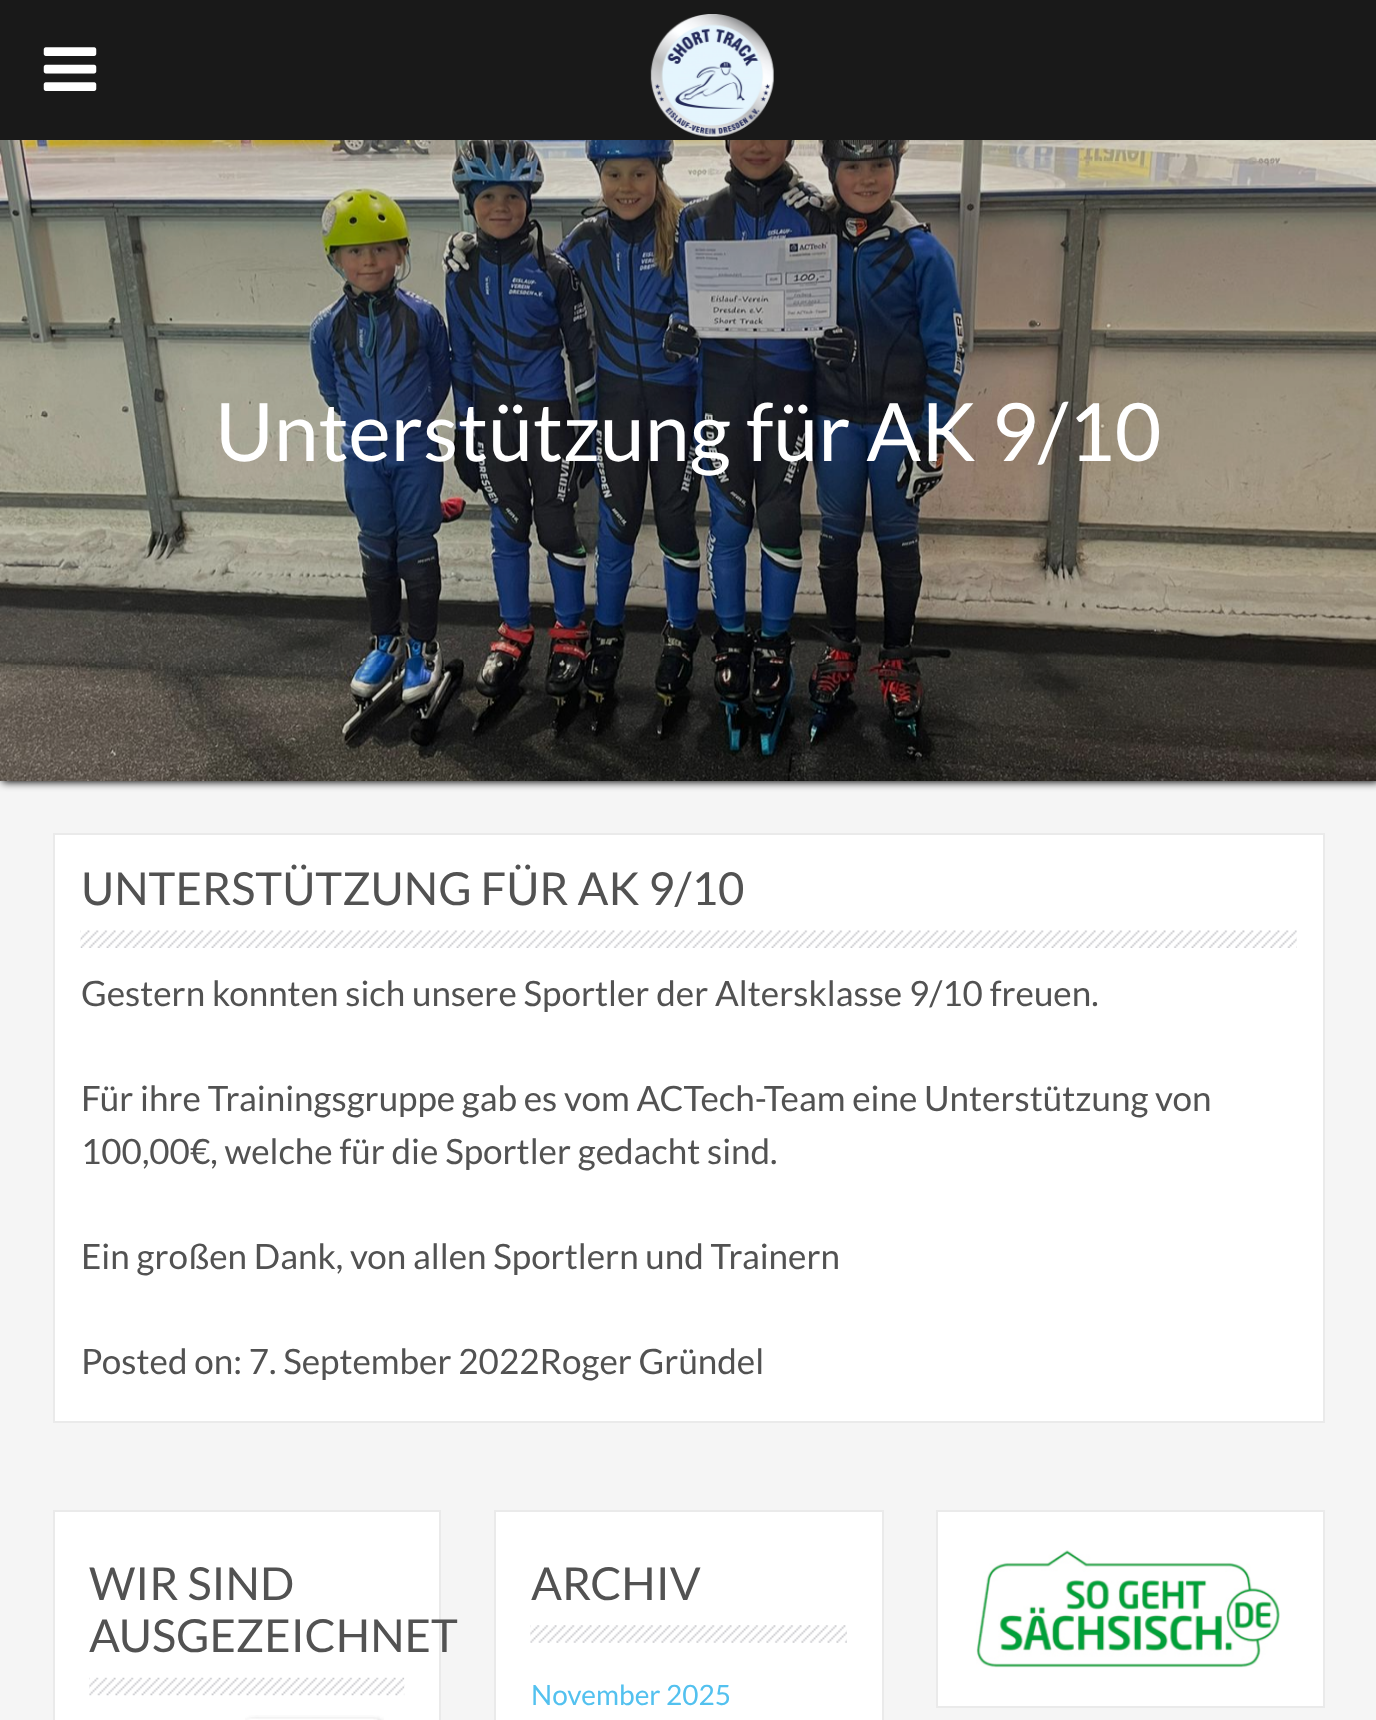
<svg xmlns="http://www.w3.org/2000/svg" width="1376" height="1720">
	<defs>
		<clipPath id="clip1"><path d="M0 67H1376V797H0ZM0 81H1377V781H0Z" clip-rule="evenodd" /></clipPath>
	</defs>
	<rect width="100%" height="100%" fill="#F5F5F5" />
	<image x="0" y="140" width="1376" height="641" href="assets/img1.png" />
	<g clip-path="url(#clip1)">
		<rect x="2" y="82" width="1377" height="700" fill="#000000" filter="blur(4.5px)" />
	</g>
	<rect x="0" y="0" width="1376" height="140" fill="#191919" />
	<image x="43" y="47" width="54" height="44" href="assets/img2.png" />
	<image x="650" y="14" width="124" height="123" href="assets/img3.png" />
	<rect x="0" y="140" width="1376" height="641" fill="#000000" fill-opacity="0.15" />
	<text x="215" y="461" font-family="Lato" font-size="80.5" fill="#FFFFFF">Unterstützung für AK 9/10</text>
	<rect x="54" y="834" width="1270" height="588" fill="#FFFFFF" stroke="#EAEAEA" stroke-width="2" />
	<text x="81" y="905" font-family="Lato" font-size="45.5" fill="#525252">UNTERSTÜTZUNG FÜR AK 9/10</text>
	<image x="80" y="930" width="1217" height="18" href="assets/img4.png" />
	<g font-family="Lato" font-size="35" fill="#525252">
		<text x="81" y="1006">Gestern konnten sich unsere Sportler der Altersklasse 9/10 freuen.</text>
		<text x="81" y="1111">Für ihre Trainingsgruppe gab es vom ACTech-Team eine Unterstützung von</text>
		<text x="81" y="1164">100,00€, welche für die Sportler gedacht sind.</text>
		<text x="81" y="1269">Ein großen Dank, von allen Sportlern und Trainern</text>
		<text x="81" y="1374">Posted on: 7. September 2022Roger Gründel</text>
	</g>
	<rect x="54" y="1511" width="386" height="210" fill="#FFFFFF" stroke="#EAEAEA" stroke-width="2" />
	<g font-family="Lato" font-size="45.5" fill="#525252">
		<text x="89" y="1600">WIR SIND</text>
		<text x="89" y="1652">AUSGEZEICHNET</text>
	</g>
	<image x="89" y="1677" width="316" height="19" href="assets/img5.png" />
	<image x="245" y="1715" width="139" height="5" href="assets/img6.png" />
	<rect x="495" y="1511" width="388" height="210" fill="#FFFFFF" stroke="#EAEAEA" stroke-width="2" />
	<text x="531" y="1600" font-family="Lato" font-size="45.5" fill="#525252">ARCHIV</text>
	<image x="530" y="1625" width="317" height="18" href="assets/img7.png" />
	<text x="531" y="1705" font-family="Lato" font-size="28" fill="#53C1EF">November 2025</text>
	<rect x="937" y="1511" width="387" height="196" fill="#FFFFFF" stroke="#EAEAEA" stroke-width="2" />
	<image x="976" y="1550" width="304" height="118" href="assets/img8.png" />
</svg>
